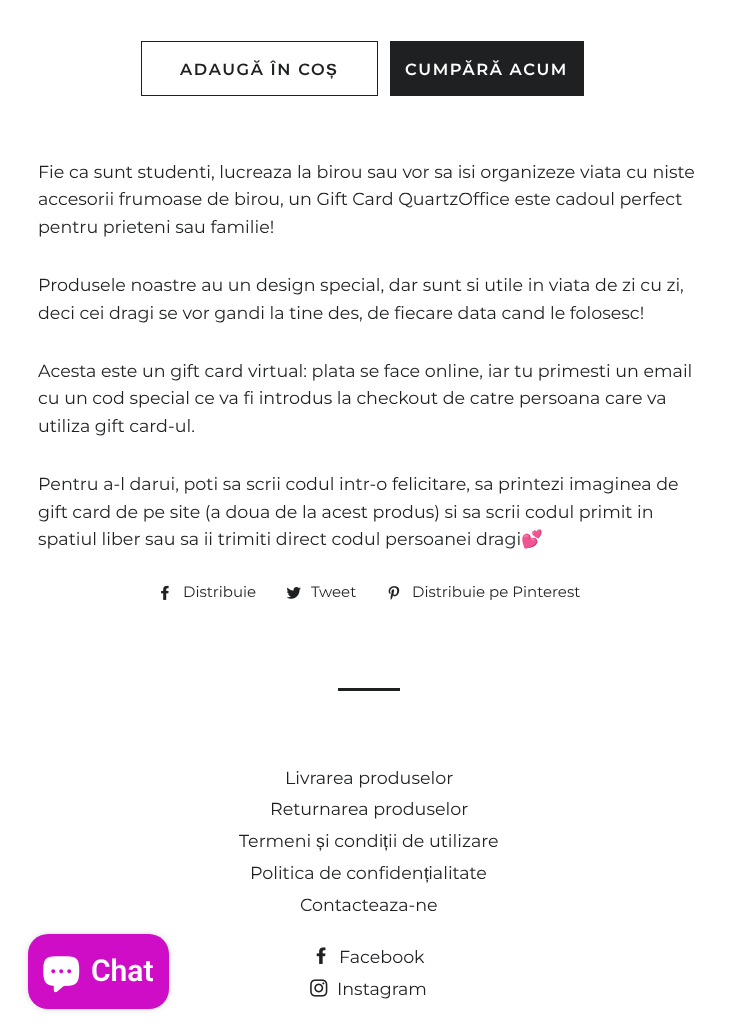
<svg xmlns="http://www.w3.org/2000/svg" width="737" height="1034">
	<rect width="100%" height="100%" fill="#FFFFFF" />
	<rect x="141.5" y="41.5" width="236" height="54" fill="none" stroke="#1F2021" />
	<text x="180" y="75" font-family="Montserrat" font-size="16.25" font-weight="600" letter-spacing="1.6" fill="#1F2021">ADAUGĂ ÎN CO</text>
	<text x="326" y="75" font-family="Liberation Sans" font-size="16.25" font-weight="700" letter-spacing="1.6" fill="#1F2021">Ș</text>
	<rect x="390" y="41" width="194" height="55" fill="#1F2021" />
	<text x="405" y="75" font-family="Montserrat" font-size="16.25" font-weight="600" letter-spacing="1.6" fill="#FFFFFF">CUMPĂRĂ ACUM</text>
	<g font-family="Montserrat" font-size="17.5" fill="#1F2021">
		<text x="38" y="178">Fie ca sunt studenti, lucreaza la birou sau vor sa isi organizeze viata cu niste</text>
		<text x="38" y="205">accesorii frumoase de birou, un Gift Card QuartzOffice este cadoul perfect</text>
		<text x="38" y="233">pentru prieteni sau familie!</text>
		<text x="38" y="291">Produsele noastre au un design special, dar sunt si utile in viata de zi cu zi,</text>
		<text x="38" y="319">deci cei dragi se vor gandi la tine des, de fiecare data cand le folosesc!</text>
		<text x="38" y="377">Acesta este un gift card virtual: plata se face online, iar tu primesti un email</text>
		<text x="38" y="404">cu un cod special ce va fi introdus la checkout de catre persoana care va</text>
		<text x="38" y="432">utiliza gift card-ul.</text>
		<text x="38" y="490">Pentru a-l darui, poti sa scrii codul intr-o felicitare, sa printezi imaginea de</text>
		<text x="38" y="518">gift card de pe site (a doua de la acest produs) si sa scrii codul primit in</text>
		<text x="38" y="545">spatiul liber sau sa ii trimiti direct codul persoanei dragi</text>
	</g>
	<text x="521" y="545" font-family="Noto Color Emoji" font-size="17.5" fill="#1F2021">💕</text>
	<image x="161" y="585" width="8" height="15" href="assets/img1.png" />
	<text x="183" y="597" font-family="Montserrat" font-size="15" fill="#1F2021">Distribuie</text>
	<image x="286" y="587" width="15" height="12" href="assets/img2.png" />
	<text x="311" y="597" font-family="Montserrat" font-size="15" fill="#1F2021">Tweet</text>
	<image x="388" y="586" width="12" height="14" href="assets/img3.png" />
	<text x="412" y="597" font-family="Montserrat" font-size="15" fill="#1F2021">Distribuie pe Pinterest</text>
	<rect x="338" y="688" width="62" height="3" fill="#1F2021" />
	<g font-family="Montserrat" font-size="17.5" fill="#1F2021">
		<text x="285" y="784">Livrarea produselor</text>
		<text x="270" y="815">Returnarea produselor</text>
		<text x="239" y="847">Termeni</text>
		<text x="325" y="847">i condi ii de utilizare</text>
	</g>
	<g font-family="Liberation Sans" font-size="17.5" fill="#1F2021">
		<text x="316" y="847">ș</text>
		<text x="383" y="847">ț</text>
	</g>
	<text x="250" y="879" font-family="Montserrat" font-size="17.5" fill="#1F2021">Politica de confiden ialitate</text>
	<text x="424" y="879" font-family="Liberation Sans" font-size="17.5" fill="#1F2021">ț</text>
	<text x="300" y="911" font-family="Montserrat" font-size="17.5" fill="#1F2021">Contacteaza-ne</text>
	<image x="316" y="947" width="10" height="17" href="assets/img4.png" />
	<text x="339" y="963" font-family="Montserrat" font-size="17.5" fill="#1F2021">Facebook</text>
	<image x="310" y="979" width="18" height="18" href="assets/img5.png" />
	<text x="337" y="995" font-family="Montserrat" font-size="17.5" fill="#1F2021">Instagram</text>
	<rect x="28" y="934" width="141" height="75" rx="20" fill="#000000" fill-opacity="0.15" filter="blur(3px)" />
	<rect x="28" y="934" width="141" height="75" rx="20" fill="#CF0DC6" />
	<image x="43" y="956" width="37" height="37" href="assets/img6.png" />
	<text x="91" y="981" font-family="Roboto" font-size="30" font-weight="600" fill="#FFFFFF">Chat</text>
</svg>
